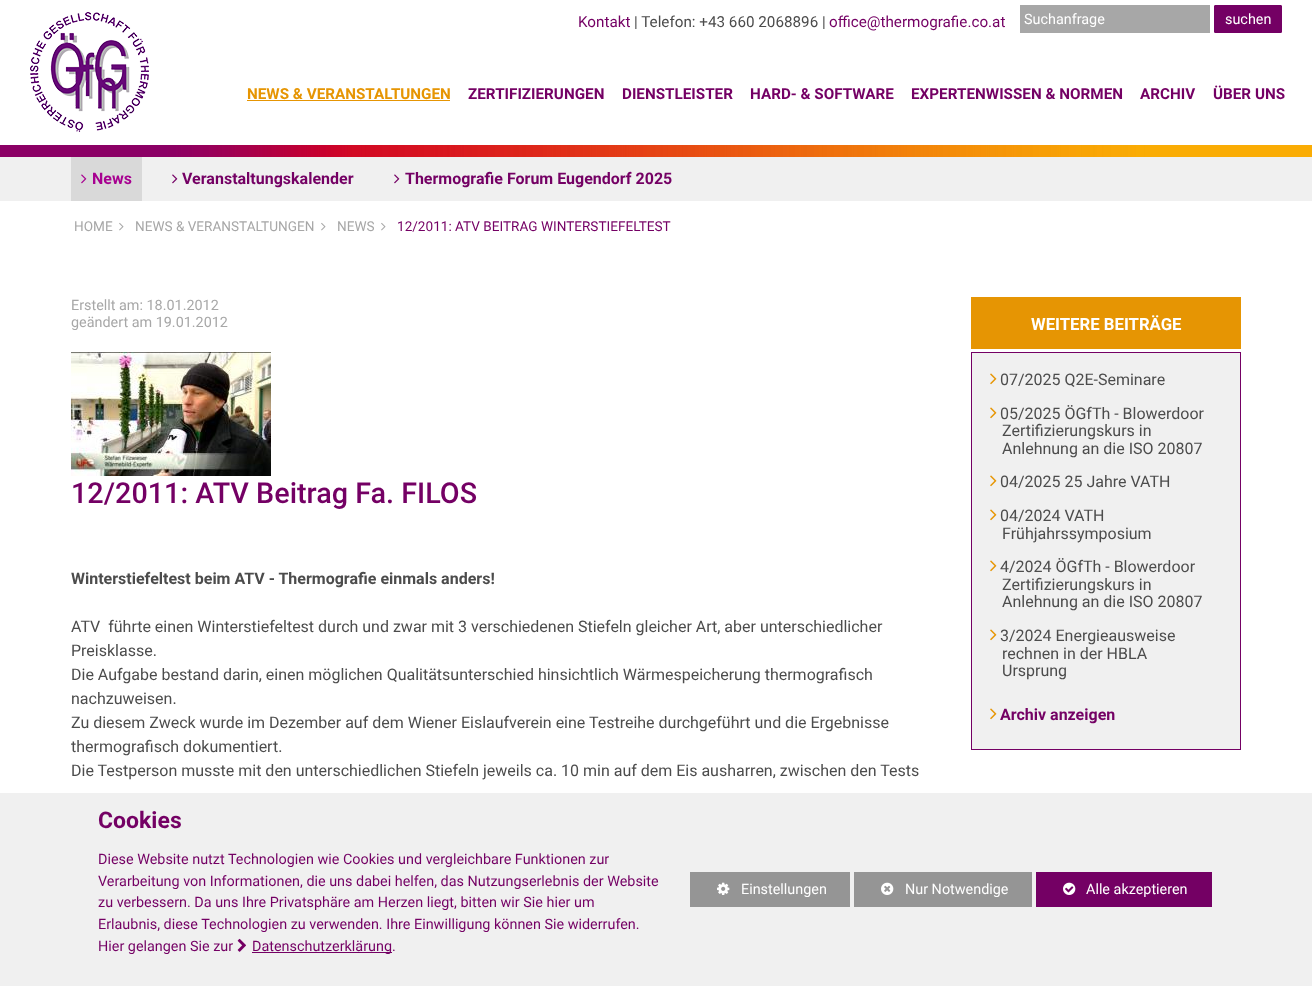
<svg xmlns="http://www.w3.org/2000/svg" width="1312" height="986">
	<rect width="100%" height="100%" fill="#FFFFFF" />
	<text x="578" y="27" font-family="Roboto" font-size="15.25" fill="#740064">Kontakt</text>
	<text x="634" y="27" font-family="Roboto" font-size="15.25" fill="#4C4C4C">| Telefon: +43 660 2068896 |</text>
	<text x="829" y="27" font-family="Roboto" font-size="15.25" fill="#740064">office@thermografie.co.at</text>
	<rect x="1020" y="5" width="190" height="28" fill="#A7A7A7" />
	<text x="1024" y="24" font-family="Roboto" font-size="14.4" fill="#FFFFFF">Suchanfrage</text>
	<rect x="1214.5" y="5.5" width="67" height="27" rx="0.5" fill="#740064" stroke="#740064" />
	<text x="1225" y="24" font-family="Roboto" font-size="14.4" fill="#FFFFFF">suchen</text>
	<image x="30" y="12" width="119" height="120" href="assets/img1.png" />
	<text x="247" y="99" font-family="Roboto" font-size="15.25" font-weight="700" fill="#E69503">NEWS &amp; VERANSTALTUNGEN</text>
	<rect x="247" y="100" width="203" height="1" fill="#E69503" />
	<g font-family="Roboto" font-size="15.25" font-weight="700" fill="#740064">
		<text x="468" y="99">ZERTIFIZIERUNGEN</text>
		<text x="622" y="99">DIENSTLEISTER</text>
		<text x="750" y="99">HARD- &amp; SOFTWARE</text>
		<text x="911" y="99">EXPERTENWISSEN &amp; NORMEN</text>
		<text x="1140" y="99">ARCHIV</text>
		<text x="1213" y="99">ÜBER UNS</text>
	</g>
	<image x="0" y="145" width="1312" height="12" href="assets/img2.png" />
	<rect x="0" y="157" width="1312" height="44" fill="#F0F0F0" />
	<rect x="71" y="157" width="71" height="44" fill="#D9D9D9" />
	<image x="81" y="174" width="6" height="10" href="assets/img3.png" />
	<text x="92" y="184" font-family="Roboto" font-size="16" font-weight="700" fill="#A70090">News</text>
	<image x="172" y="174" width="6" height="10" href="assets/img4.png" />
	<text x="182" y="184" font-family="Roboto" font-size="16" font-weight="700" fill="#740064">Veranstaltungskalender</text>
	<image x="394" y="174" width="6" height="10" href="assets/img4.png" />
	<text x="405" y="184" font-family="Roboto" font-size="16" font-weight="700" fill="#740064">Thermografie Forum Eugendorf 2025</text>
	<text x="74" y="231" font-family="Roboto" font-size="13.6" fill="#A7A7A7">HOME</text>
	<image x="119" y="222" width="5" height="9" href="assets/img5.png" />
	<text x="135" y="231" font-family="Roboto" font-size="13.6" fill="#A7A7A7">NEWS &amp; VERANSTALTUNGEN</text>
	<image x="321" y="222" width="5" height="9" href="assets/img5.png" />
	<text x="337" y="231" font-family="Roboto" font-size="13.6" fill="#A7A7A7">NEWS</text>
	<image x="381" y="222" width="5" height="9" href="assets/img5.png" />
	<text x="397" y="231" font-family="Roboto" font-size="13.6" fill="#740064">12/2011: ATV BEITRAG WINTERSTIEFELTEST</text>
	<g font-family="Roboto" font-size="14.4" fill="#A7A7A7">
		<text x="71" y="310">Erstellt am: 18.01.2012</text>
		<text x="71" y="327">geändert am 19.01.2012</text>
	</g>
	<image x="71" y="352" width="200" height="124" href="assets/img6.png" />
	<text x="71" y="503" font-family="Roboto" font-size="28.75" font-weight="500" fill="#740064">12/2011: ATV Beitrag Fa. FILOS</text>
	<text x="71" y="584" font-family="Roboto" font-size="16" font-weight="700" fill="#4C4C4C">Winterstiefeltest beim ATV - Thermografie einmals anders!</text>
	<g font-family="Roboto" font-size="16" fill="#4C4C4C">
		<text x="71" y="632" xml:space="preserve">ATV  führte einen Winterstiefeltest durch und zwar mit 3 verschiedenen Stiefeln gleicher Art, aber unterschiedlicher</text>
		<text x="71" y="656">Preisklasse.</text>
		<text x="71" y="680">Die Aufgabe bestand darin, einen möglichen Qualitätsunterschied hinsichtlich Wärmespeicherung thermografisch</text>
		<text x="71" y="704">nachzuweisen.</text>
		<text x="71" y="728">Zu diesem Zweck wurde im Dezember auf dem Wiener Eislaufverein eine Testreihe durchgeführt und die Ergebnisse</text>
		<text x="71" y="752">thermografisch dokumentiert.</text>
		<text x="71" y="776">Die Testperson musste mit den unterschiedlichen Stiefeln jeweils ca. 10 min auf dem Eis ausharren, zwischen den Tests</text>
	</g>
	<rect x="971" y="297" width="270" height="52" fill="#E69503" />
	<text x="1031" y="330" font-family="Roboto" font-size="16.75" font-weight="700" fill="#FFFFFF">WEITERE BEITRÄGE</text>
	<rect x="971.5" y="352.5" width="269" height="397" fill="#F0F0F0" stroke="#740064" />
	<image x="990" y="373" width="7" height="12" href="assets/img7.png" />
	<text x="1000" y="385" font-family="Roboto" font-size="16" fill="#4C4C4C">07/2025 Q2E-Seminare</text>
	<image x="990" y="407" width="7" height="12" href="assets/img7.png" />
	<g font-family="Roboto" font-size="16" fill="#4C4C4C">
		<text x="1000" y="419">05/2025 ÖGfTh - Blowerdoor</text>
		<text x="1002" y="436">Zertifizierungskurs in</text>
		<text x="1002" y="454">Anlehnung an die ISO 20807</text>
	</g>
	<image x="990" y="475" width="7" height="12" href="assets/img7.png" />
	<text x="1000" y="487" font-family="Roboto" font-size="16" fill="#4C4C4C">04/2025 25 Jahre VATH</text>
	<image x="990" y="509" width="7" height="12" href="assets/img7.png" />
	<g font-family="Roboto" font-size="16" fill="#4C4C4C">
		<text x="1000" y="521">04/2024 VATH</text>
		<text x="1002" y="539">Frühjahrssymposium</text>
	</g>
	<image x="990" y="560" width="7" height="12" href="assets/img7.png" />
	<g font-family="Roboto" font-size="16" fill="#4C4C4C">
		<text x="1000" y="572">4/2024 ÖGfTh - Blowerdoor</text>
		<text x="1002" y="590">Zertifizierungskurs in</text>
		<text x="1002" y="607">Anlehnung an die ISO 20807</text>
	</g>
	<image x="990" y="629" width="7" height="12" href="assets/img7.png" />
	<g font-family="Roboto" font-size="16" fill="#4C4C4C">
		<text x="1000" y="641">3/2024 Energieausweise</text>
		<text x="1002" y="659">rechnen in der HBLA</text>
		<text x="1002" y="676">Ursprung</text>
	</g>
	<image x="990" y="708" width="7" height="12" href="assets/img7.png" />
	<text x="1000" y="720" font-family="Roboto" font-size="16" font-weight="700" fill="#740064">Archiv anzeigen</text>
	<rect x="0" y="793" width="1312" height="193" fill="#F0F0F0" />
	<text x="98" y="828" font-family="Roboto" font-size="23" font-weight="700" fill="#740064">Cookies</text>
	<g font-family="Roboto" font-size="14.4" fill="#740064">
		<text x="98" y="864">Diese Website nutzt Technologien wie Cookies und vergleichbare Funktionen zur</text>
		<text x="98" y="886">Verarbeitung von Informationen, die uns dabei helfen, das Nutzungserlebnis der Website</text>
		<text x="98" y="907">zu verbessern. Da uns Ihre Privatsphäre am Herzen liegt, bitten wir Sie hier um</text>
		<text x="98" y="929">Erlaubnis, diese Technologien zu verwenden. Ihre Einwilligung können Sie widerrufen.</text>
		<text x="98" y="951">Hier gelangen Sie zur</text>
	</g>
	<image x="237" y="938" width="9" height="14" href="assets/img8.png" />
	<rect x="252" y="952" width="140" height="1" fill="#740064" />
	<text x="252" y="951" font-family="Roboto" font-size="14.4" fill="#740064">Datenschutzerklärung.</text>
	<rect x="690" y="872" width="160" height="35" fill="#959595" />
	<image x="717" y="882" width="13" height="13" href="assets/img9.png" />
	<text x="741" y="894" font-family="Roboto" font-size="14.4" fill="#FFFFFF">Einstellungen</text>
	<rect x="854" y="872" width="178" height="35" fill="#959595" />
	<image x="881" y="882" width="13" height="13" href="assets/img10.png" />
	<text x="905" y="894" font-family="Roboto" font-size="14.4" fill="#FFFFFF">Nur Notwendige</text>
	<rect x="1036" y="872" width="176" height="35" fill="#740064" />
	<image x="1063" y="882" width="13" height="13" href="assets/img11.png" />
	<text x="1086" y="894" font-family="Roboto" font-size="14.4" fill="#FFFFFF">Alle akzeptieren</text>
</svg>
